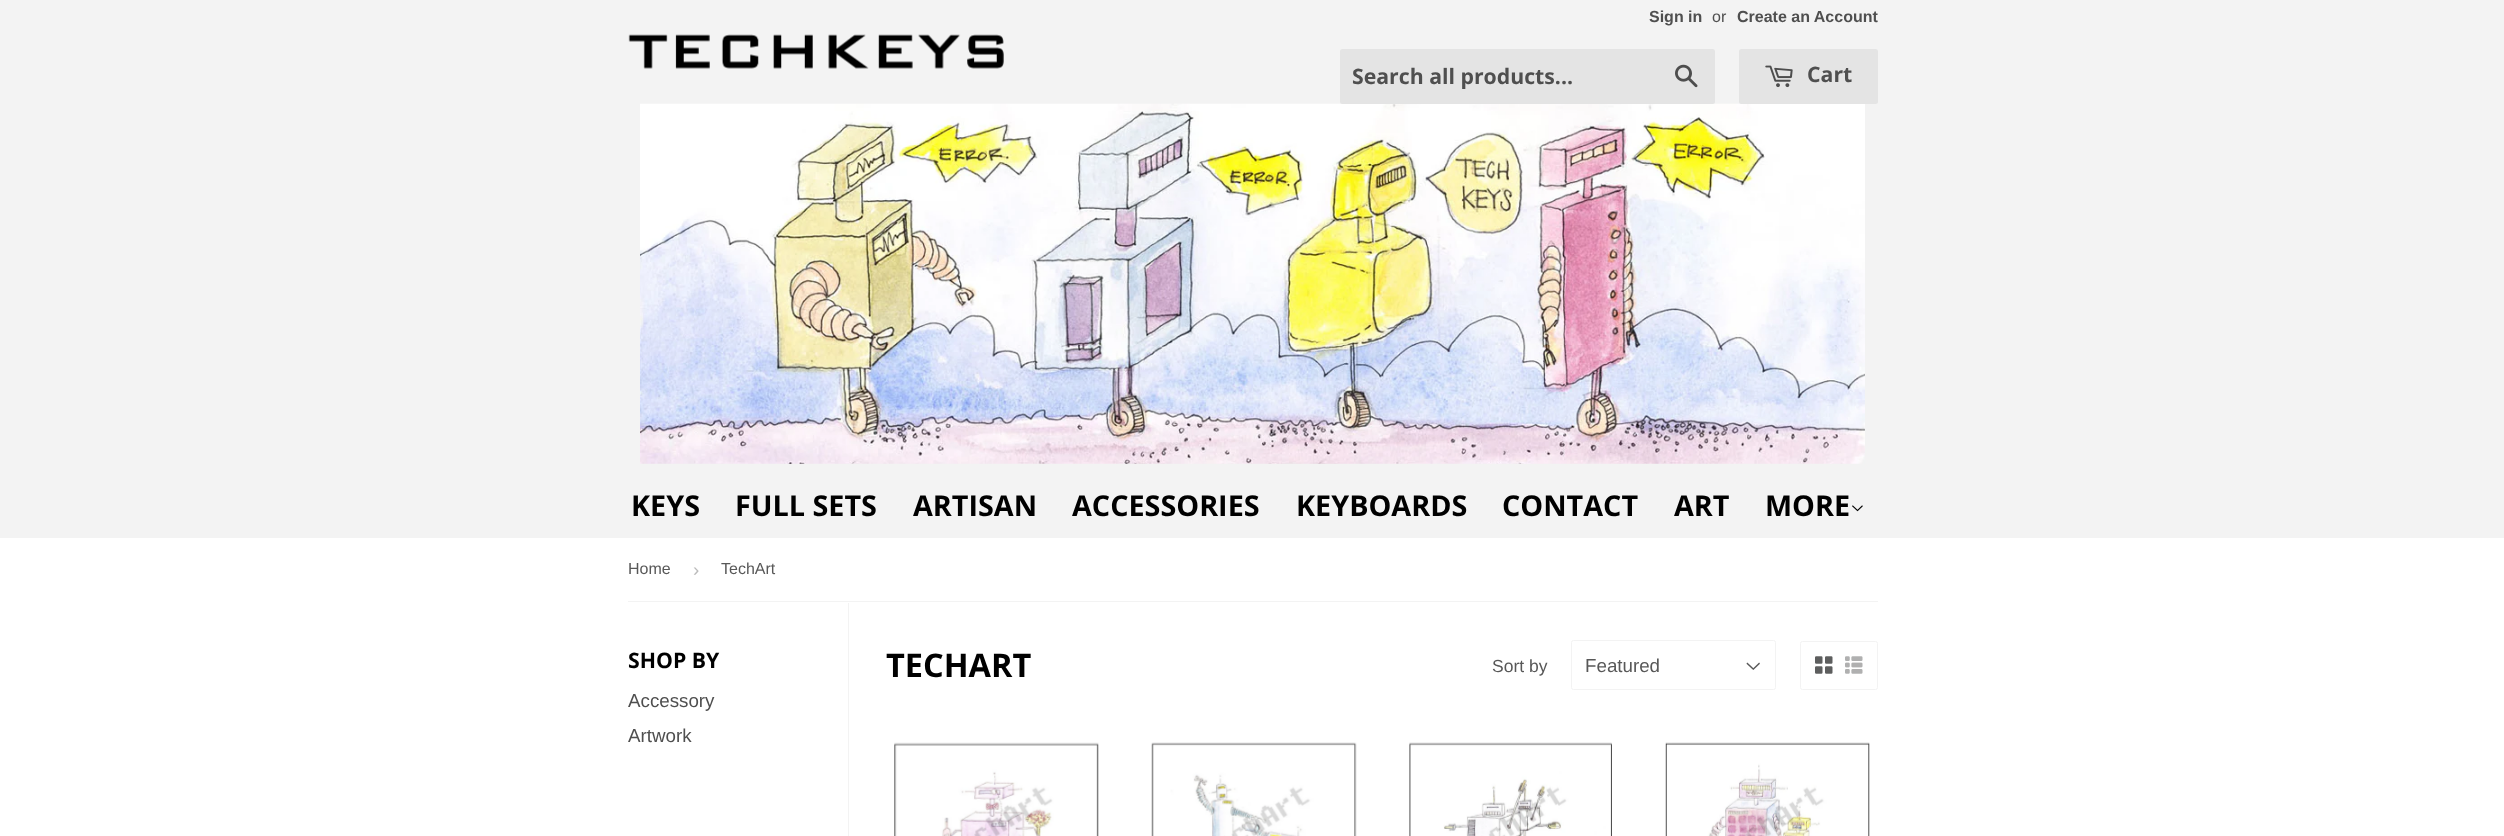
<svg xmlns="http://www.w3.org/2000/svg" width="2504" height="836">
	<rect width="100%" height="100%" fill="#FFFFFF" />
	<rect x="0" y="0" width="2504" height="538" fill="#F3F3F3" />
	<image x="628" y="34" width="376" height="35" href="assets/img1.png" />
	<text x="1649" y="22" font-family="Liberation Sans" font-size="16" font-weight="700" fill="#4F4F4F">Sign in</text>
	<text x="1712" y="22" font-family="Liberation Sans" font-size="16" fill="#4F4F4F">or</text>
	<text x="1737" y="22" font-family="Liberation Sans" font-size="16" font-weight="700" fill="#4F4F4F">Create an Account</text>
	<image x="640" y="103" width="1225" height="361" href="assets/img4.png" />
	<rect x="1340" y="49" width="375" height="55" rx="2.5" fill="#E4E4E4" />
	<text x="1352" y="84" font-family="Open Sans" font-size="21.25" font-weight="700" fill="#4F4F4F">Search all products...</text>
	<image x="1675" y="64" width="23" height="24" href="assets/img2.png" />
	<rect x="1739" y="49" width="139" height="55" rx="2.5" fill="#E4E4E4" />
	<image x="1765" y="65" width="28" height="23" href="assets/img3.png" />
	<text x="1807" y="82" font-family="Open Sans" font-size="21.25" font-weight="700" fill="#4F4F4F">Cart</text>
	<g font-family="Open Sans" font-size="28.75" font-weight="700" fill="#000000">
		<text x="631" y="516">KEYS</text>
		<text x="735" y="516">FULL SETS</text>
		<text x="913" y="516">ARTISAN</text>
		<text x="1072" y="516">ACCESSORIES</text>
		<text x="1296" y="516">KEYBOARDS</text>
		<text x="1502" y="516">CONTACT</text>
		<text x="1674" y="516">ART</text>
		<text x="1765" y="516">MORE</text>
	</g>
	<image x="1852" y="505" width="11" height="7" href="assets/img5.png" />
	<rect x="628" y="601" width="1250" height="1" fill="#F3F3F3" />
	<text x="628" y="574" font-family="Liberation Sans" font-size="16" fill="#585858">Home</text>
	<text x="693" y="576" font-family="Liberation Sans" font-size="18.75" fill="#BBBBBB">›</text>
	<text x="721" y="574" font-family="Liberation Sans" font-size="16" fill="#585858">TechArt</text>
	<text x="628" y="668" font-family="Open Sans" font-size="21.25" font-weight="700" fill="#000000">SHOP BY</text>
	<g font-family="Liberation Sans" font-size="18.75" fill="#4F4F4F">
		<text x="628" y="707">Accessory</text>
		<text x="628" y="742">Artwork</text>
	</g>
	<rect x="848" y="603" width="1" height="233" fill="#F3F3F3" />
	<text x="886" y="677" font-family="Open Sans" font-size="32.5" font-weight="700" fill="#000000">TECHART</text>
	<text x="1492" y="672" font-family="Liberation Sans" font-size="17.5" fill="#585858">Sort by</text>
	<image x="1746" y="662" width="14" height="8" href="assets/img6.png" />
	<rect x="1571.5" y="640.5" width="204" height="49" rx="2" fill="none" stroke="#F3F3F3" />
	<text x="1585" y="672" font-family="Liberation Sans" font-size="18.75" fill="#585858">Featured</text>
	<rect x="1800.5" y="641.5" width="77" height="48" rx="2" fill="none" stroke="#F3F3F3" />
	<image x="1815" y="656" width="18" height="18" href="assets/img7.png" />
	<image x="1845" y="656" width="18" height="18" href="assets/img8.png" />
	<image x="894" y="742" width="205" height="94" href="assets/img9.png" />
	<image x="1151" y="742" width="206" height="94" href="assets/img10.png" />
	<image x="1409" y="742" width="203" height="94" href="assets/img11.png" />
	<image x="1665" y="742" width="205" height="94" href="assets/img12.png" />
</svg>
